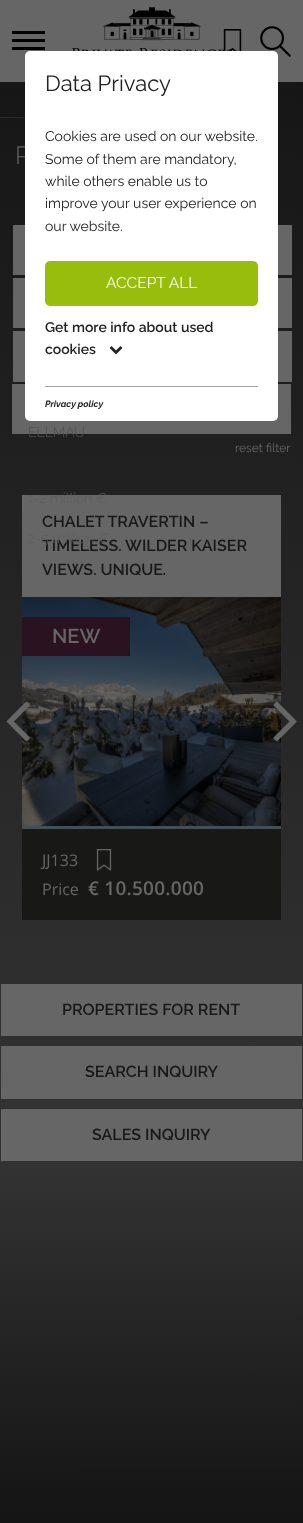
<svg xmlns="http://www.w3.org/2000/svg" width="303" height="1523">
	<defs>
		<linearGradient id="g1" gradientUnits="userSpaceOnUse" x1="151" y1="0" x2="152" y2="1523"><stop offset="0" stop-color="#141414" /><stop offset="0.73" stop-color="#323232" /><stop offset="0.77" stop-color="#323232" /><stop offset="1" stop-color="#141414" /></linearGradient>
		<linearGradient id="g2" gradientUnits="userSpaceOnUse" x1="0" y1="118" x2="191" y2="118"><stop offset="0" stop-color="#2B2B2B" /><stop offset="1" stop-color="#171717" /></linearGradient>
	</defs>
	<rect width="100%" height="100%" fill="#FFFFFF" />
	<rect x="0" y="0" width="303" height="82" fill="#666666" />
	<image x="260" y="26" width="31" height="31" href="assets/img4.png" />
	<rect x="0" y="82" width="303" height="1441" fill="url(#g1)" />
	<text x="15" y="164" font-family="Raleway" font-size="25" font-weight="300" fill="#666666">P</text>
	<rect x="13" y="278" width="279" height="50" fill="#666666" />
	<rect x="12" y="384" width="279" height="50" fill="#666666" />
	<rect x="13" y="225" width="279" height="50" fill="#666666" />
	<rect x="13" y="331" width="279" height="51" fill="#666666" />
	<rect x="25" y="51" width="253" height="370" rx="5" fill="#FFFFFF" />
	<text x="45" y="91" font-family="Raleway" font-size="22" fill="#222222">Data Privacy</text>
	<g font-family="Raleway" font-size="14" fill="#222222">
		<text x="45" y="141">Cookies are used on our website.</text>
		<text x="45" y="164">Some of them are mandatory,</text>
		<text x="45" y="186">while others enable us to</text>
		<text x="45" y="208">improve your user experience on</text>
		<text x="45" y="231">our website.</text>
	</g>
	<rect x="45" y="261" width="213" height="45" rx="5" fill="#97BE0C" />
	<text x="106" y="288" font-family="Raleway" font-size="15.5" fill="#FFFFFF">ACCEPT ALL</text>
	<g font-family="Raleway" font-size="14" font-weight="600" fill="#222222">
		<text x="45" y="332">Get more info about used</text>
		<text x="45" y="354">cookies</text>
	</g>
	<image x="109" y="346" width="14" height="9" href="assets/img1.png" />
	<rect x="45" y="386" width="213" height="1" fill="#A5A5A5" />
	<text x="45" y="407" font-family="Raleway" font-size="9" font-weight="100" font-style="italic" fill="#222222">Privacy policy</text>
	<rect x="12" y="31" width="33" height="3" fill="#000000" />
	<rect x="12" y="39" width="33" height="3" fill="#000000" />
	<rect x="12" y="47" width="33" height="3" fill="#000000" />
	<image x="223" y="29" width="19" height="22" href="assets/img3.png" />
	<image x="72" y="7" width="160" height="44" href="assets/img2.png" />
	<rect x="0" y="117" width="25" height="1" fill="url(#g2)" />
	<text x="28" y="437" font-family="Raleway" font-size="14" font-weight="300" fill="#4F4F4F">ELLMAU</text>
	<text x="235" y="452" font-family="Raleway" font-size="12" fill="#666666">reset filter</text>
	<rect x="22" y="495" width="259" height="102" fill="#666666" />
	<text x="28" y="503" font-family="Raleway" font-size="14" font-weight="300" fill="#5F5F5F">1-2 million €</text>
	<text x="42" y="551" font-family="Raleway" font-size="16" font-weight="600" fill="#181817">TIMELESS. WILDER KAISER</text>
	<text x="28" y="543" font-family="Raleway" font-size="14" font-weight="300" fill="#5F5F5F">2-5 million €</text>
	<image x="22" y="597" width="259" height="229" href="assets/img6.png" />
	<image x="6" y="701" width="24" height="41" href="assets/img5.png" />
	<g font-family="Raleway" font-size="16" font-weight="600" fill="#181817">
		<text x="42" y="527">CHALET TRAVERTIN –</text>
		<text x="42" y="575">VIEWS. UNIQUE.</text>
	</g>
	<rect x="22" y="617" width="108" height="39" fill="#2A1221" />
	<text x="52" y="643" font-family="Raleway" font-size="20" font-weight="600" fill="#666666">NEW</text>
	<rect x="22" y="829" width="259" height="91" fill="#181817" />
	<rect x="22" y="826" width="259" height="3" fill="#434F56" />
	<text x="42" y="866" font-family="Open Sans" font-size="16" fill="#666666">JJ133</text>
	<image x="96" y="849" width="16" height="22" href="assets/img7.png" />
	<text x="42" y="895" font-family="Open Sans" font-size="16" fill="#666666">Price</text>
	<text x="88" y="895" font-family="Open Sans" font-size="19" font-weight="600" letter-spacing="0.25" fill="#666666">€ 10.500.000</text>
	<image x="273" y="701" width="24" height="41" href="assets/img8.png" />
	<rect x="1" y="984" width="301" height="52" fill="#666666" />
	<text x="62" y="1015" font-family="Raleway" font-size="16" font-weight="600" fill="#181817">PROPERTIES FOR RENT</text>
	<rect x="1" y="1046" width="301" height="53" fill="#666666" />
	<text x="85" y="1077" font-family="Raleway" font-size="16" font-weight="600" fill="#181817">SEARCH INQUIRY</text>
	<rect x="1" y="1109" width="301" height="52" fill="#666666" />
	<text x="92" y="1140" font-family="Raleway" font-size="16" font-weight="600" fill="#181817">SALES INQUIRY</text>
</svg>
